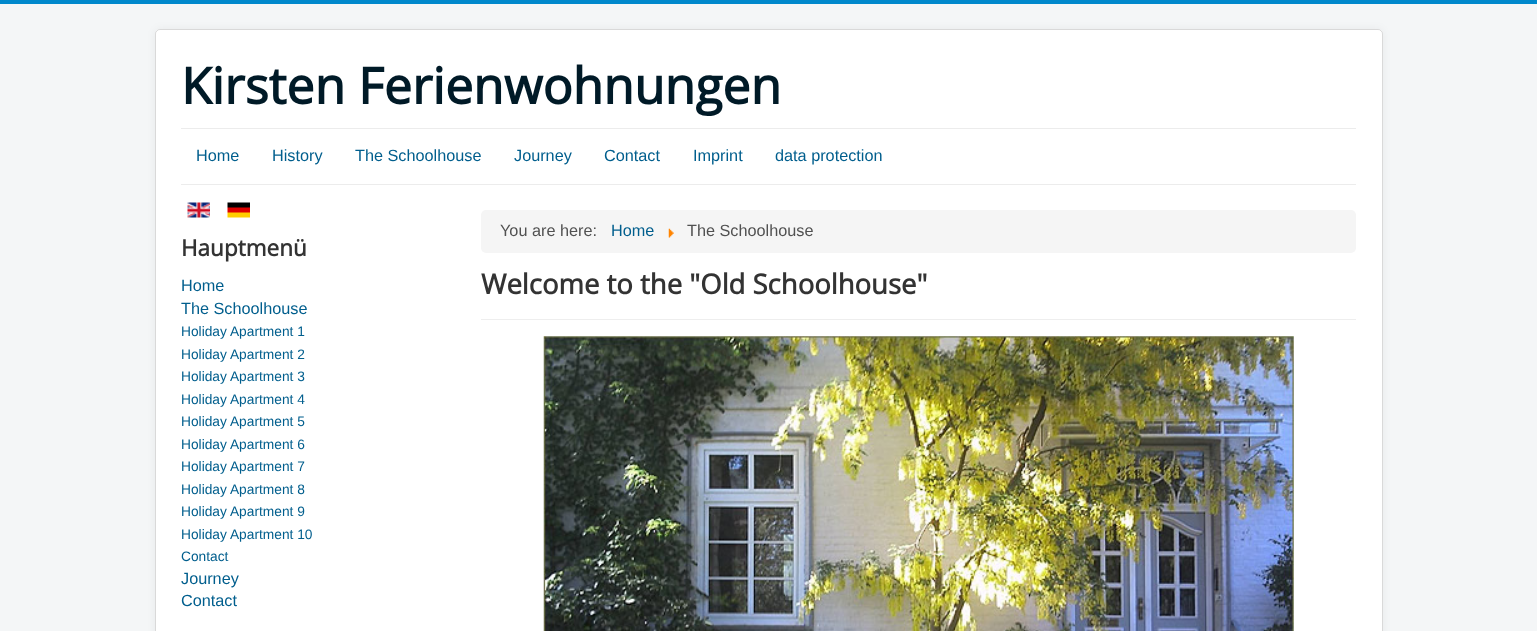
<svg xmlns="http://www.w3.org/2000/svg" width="1537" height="631">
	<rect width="100%" height="100%" fill="#F4F6F7" />
	<rect x="0" y="0" width="1537" height="4" fill="#0088CC" />
	<rect x="155" y="29" width="1228" height="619" rx="5" fill="#000000" fill-opacity="0.05" filter="blur(4px)" />
	<rect x="155" y="29" width="1228" height="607" rx="5" fill="#FFFFFF" />
	<rect x="155.5" y="29.5" width="1227" height="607" rx="4.5" fill="none" stroke="#000000" stroke-opacity="0.15" />
	<text x="181" y="104" font-family="Open Sans" font-size="50" font-weight="700" fill="#001A27">Kirsten Ferienwohnungen</text>
	<rect x="181" y="128" width="1175" height="1" fill="#ECECEC" />
	<rect x="181" y="184" width="1175" height="1" fill="#ECECEC" />
	<g font-family="Liberation Sans" font-size="16.25" fill="#005E8D">
		<text x="196" y="161">Home</text>
		<text x="272" y="161">History</text>
		<text x="355" y="161">The Schoolhouse</text>
		<text x="514" y="161">Journey</text>
		<text x="604" y="161">Contact</text>
		<text x="693" y="161">Imprint</text>
		<text x="775" y="161">data protection</text>
	</g>
	<image x="187" y="202" width="23" height="16" href="assets/img1.png" />
	<image x="227" y="202" width="23" height="16" href="assets/img2.png" />
	<text x="181" y="256" font-family="Open Sans" font-size="22.5" font-weight="700" fill="#333333">Hauptmenü</text>
	<g font-family="Liberation Sans" font-size="16.25" fill="#005E8D">
		<text x="181" y="291">Home</text>
		<text x="181" y="314">The Schoolhouse</text>
	</g>
	<g font-family="Liberation Sans" font-size="13.75" fill="#005E8D">
		<text x="181" y="336">Holiday Apartment 1</text>
		<text x="181" y="359">Holiday Apartment 2</text>
		<text x="181" y="381">Holiday Apartment 3</text>
		<text x="181" y="404">Holiday Apartment 4</text>
		<text x="181" y="426">Holiday Apartment 5</text>
		<text x="181" y="449">Holiday Apartment 6</text>
		<text x="181" y="471">Holiday Apartment 7</text>
		<text x="181" y="494">Holiday Apartment 8</text>
		<text x="181" y="516">Holiday Apartment 9</text>
		<text x="181" y="539">Holiday Apartment 10</text>
		<text x="181" y="561">Contact</text>
	</g>
	<g font-family="Liberation Sans" font-size="16.25" fill="#005E8D">
		<text x="181" y="584">Journey</text>
		<text x="181" y="606">Contact</text>
	</g>
	<rect x="481" y="210" width="875" height="43" rx="5" fill="#F5F5F5" />
	<text x="500" y="236" font-family="Liberation Sans" font-size="16.25" fill="#515151">You are here:</text>
	<text x="611" y="236" font-family="Liberation Sans" font-size="16.25" fill="#005E8D">Home</text>
	<image x="668" y="228" width="6" height="10" href="assets/img3.png" />
	<text x="687" y="236" font-family="Liberation Sans" font-size="16.25" fill="#515151">The Schoolhouse</text>
	<rect x="481" y="319" width="875" height="1" fill="#EEEEEE" />
	<text x="481" y="294" font-family="Open Sans" font-size="27.5" font-weight="700" fill="#333333">Welcome to the "Old Schoolhouse"</text>
	<image x="543" y="336" width="751" height="295" href="assets/img4.png" />
</svg>
